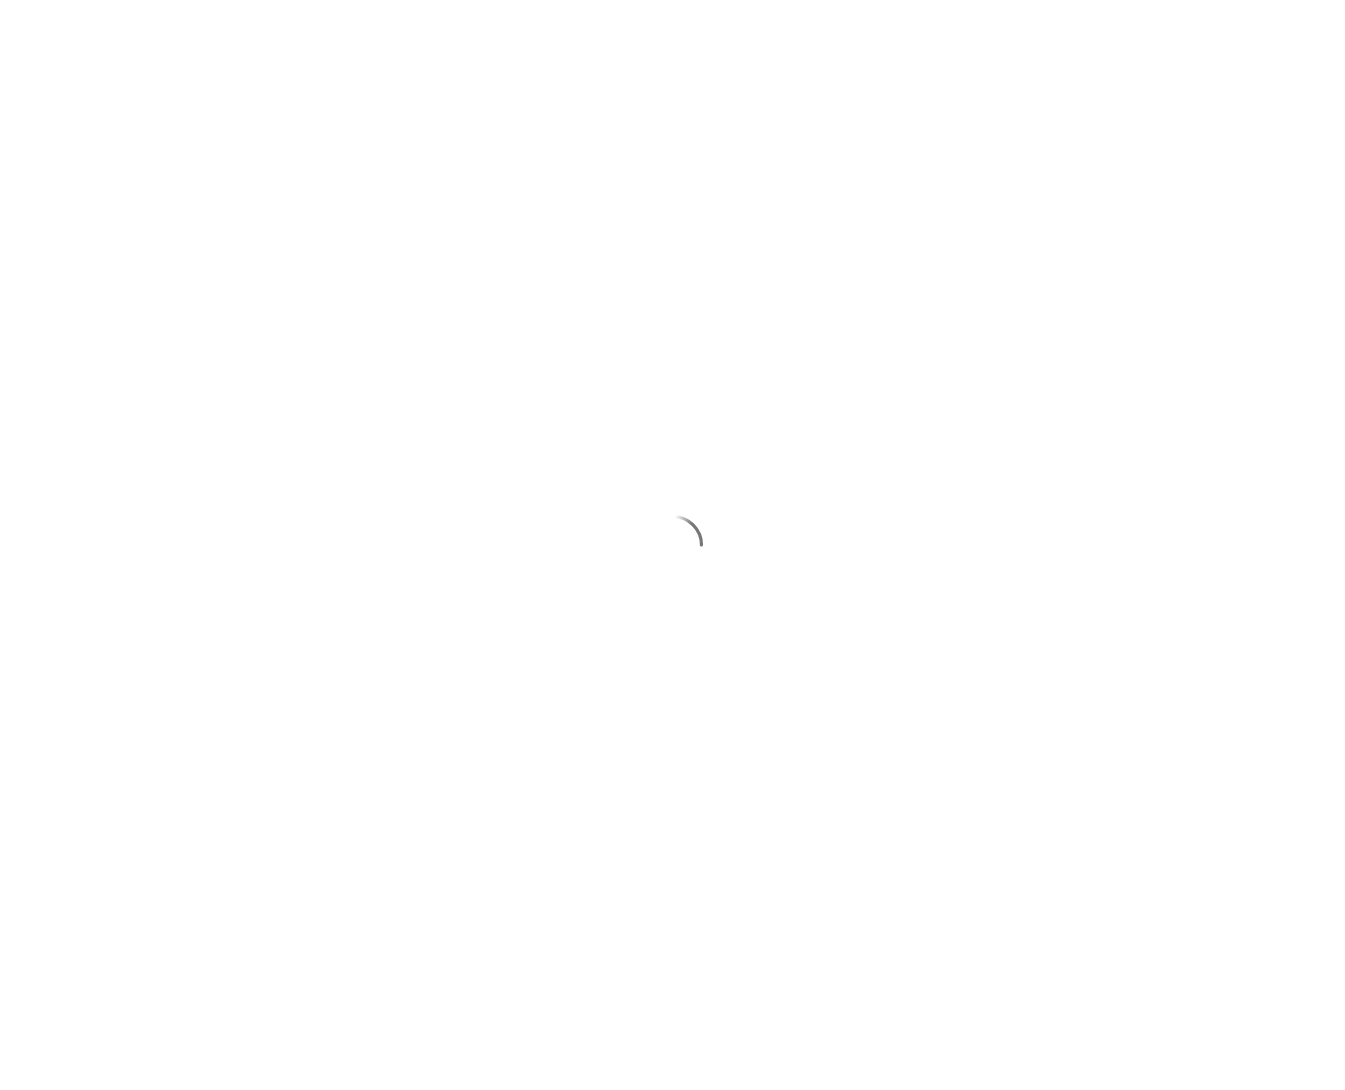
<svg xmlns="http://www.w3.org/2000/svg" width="1345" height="1090">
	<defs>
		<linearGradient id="g1" gradientUnits="userSpaceOnUse" x1="675" y1="517" x2="692" y2="523"><stop offset="0" stop-color="#FFFFFF" /><stop offset="0.63" stop-color="#A9A9A9" /><stop offset="1" stop-color="#777777" /></linearGradient>
	</defs>
	<rect width="100%" height="100%" fill="#FFFFFF" />
	<path d="M701.5 545C701.5 529.5 688.5 516.5 673 516.5" fill="none" stroke="url(#g1)" stroke-width="3.2" />
	<circle cx="701.4" cy="545" r="1.6" fill="#777777" />
</svg>
